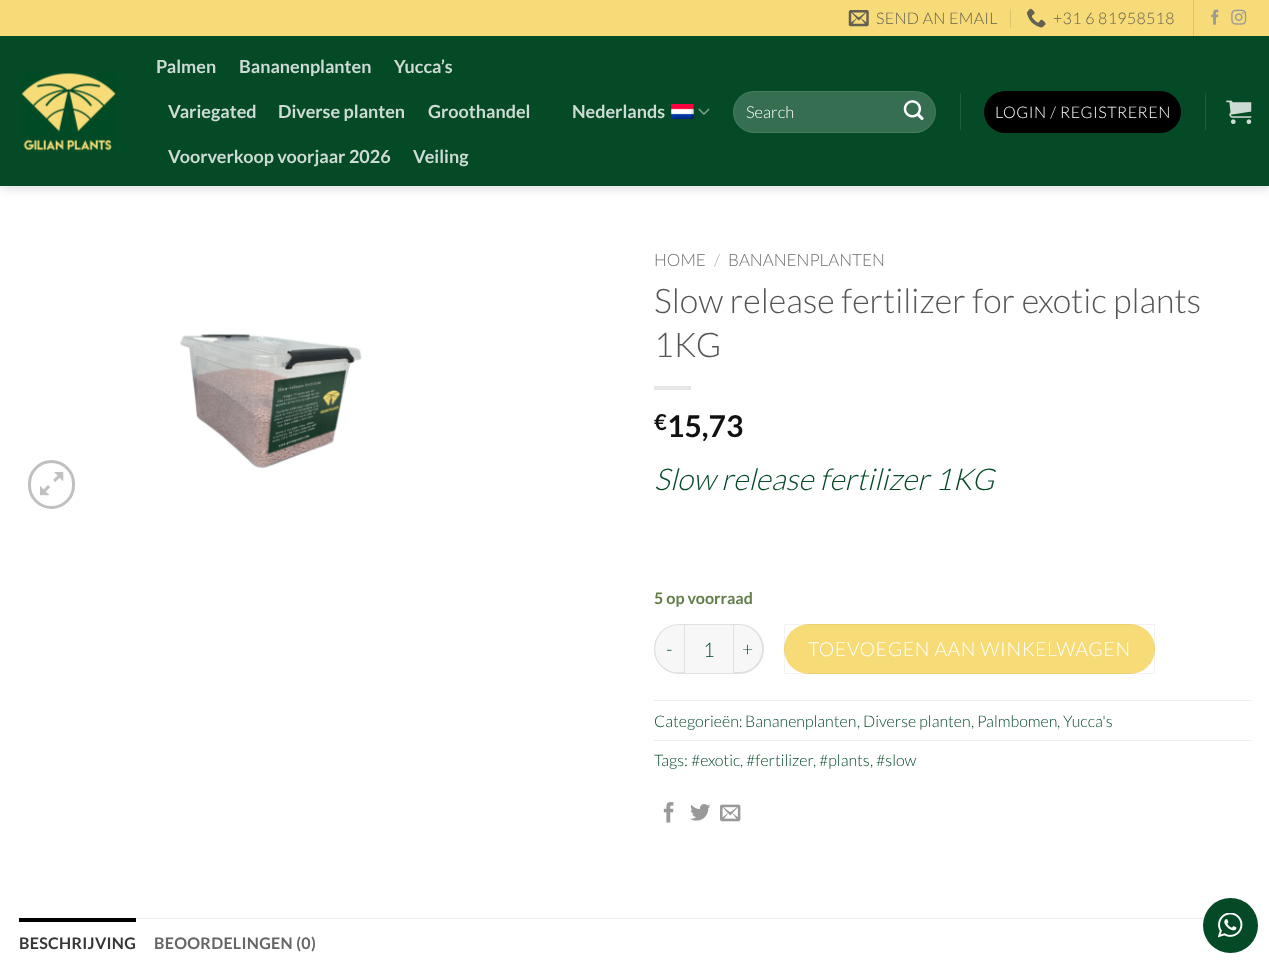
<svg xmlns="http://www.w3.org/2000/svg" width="1269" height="964">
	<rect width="100%" height="100%" fill="#FFFFFF" />
	<rect x="1" y="0" width="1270" height="188" fill="#000000" fill-opacity="0.15" filter="blur(6px)" />
	<rect x="0" y="0" width="1269" height="36" fill="#F6DB78" />
	<image x="848" y="10" width="21" height="17" href="assets/img1.png" />
	<text x="876" y="24" font-family="Lato" font-size="16" font-weight="300" letter-spacing="0.3" fill="#646051">SEND AN EMAIL</text>
	<rect x="1010" y="9" width="1" height="19" fill="#DDC56C" />
	<image x="1026" y="8" width="20" height="20" href="assets/img2.png" />
	<text x="1053" y="24" font-family="Lato" font-size="16" font-weight="300" letter-spacing="0.3" fill="#646051">+31 6 81958518</text>
	<rect x="1193" y="0" width="1" height="36" fill="#DDC56C" />
	<image x="1211" y="9" width="8" height="16" href="assets/img3.png" />
	<image x="1231" y="9" width="16" height="16" href="assets/img4.png" />
	<rect x="0" y="36" width="1269" height="150" fill="#044A27" />
	<image x="21" y="73" width="95" height="78" href="assets/img5.png" />
	<g font-family="Lato" font-size="18" font-weight="700" fill="#CDDBD4">
		<text x="156" y="73">Palmen</text>
		<text x="239" y="73">Bananenplanten</text>
		<text x="394" y="73">Yucca’s</text>
		<text x="168" y="118">Variegated</text>
		<text x="278" y="118">Diverse planten</text>
		<text x="428" y="118">Groothandel</text>
		<text x="168" y="163">Voorverkoop voorjaar 2026</text>
		<text x="413" y="163">Veiling</text>
		<text x="572" y="118">Nederlands</text>
	</g>
	<image x="671" y="104" width="23" height="15" href="assets/img6.png" />
	<image x="698" y="108" width="12" height="7" href="assets/img7.png" />
	<rect x="733" y="91" width="203" height="42" rx="21" fill="#366E52" />
	<rect x="733.5" y="91.5" width="202" height="41" rx="20.5" fill="none" stroke="#FFFFFF" stroke-opacity="0.09" />
	<text x="746" y="118" font-family="Lato" font-size="16.5" font-weight="300" fill="#FFFFFF">Search</text>
	<image x="903" y="100" width="21" height="20" href="assets/img8.png" />
	<rect x="960" y="93" width="1" height="37" fill="#1D5C3D" />
	<rect x="984" y="91" width="197" height="42" rx="21" fill="#000000" />
	<text x="995" y="118" font-family="Lato" font-size="16" font-weight="300" letter-spacing="0.5" fill="#FFFFFF">LOGIN / REGISTREREN</text>
	<rect x="1205" y="93" width="1" height="37" fill="#1D5C3D" />
	<image x="1226" y="100" width="26" height="24" href="assets/img9.png" />
	<image x="180" y="333" width="182" height="135" href="assets/img10.png" />
	<rect x="29.5" y="461.5" width="44" height="46" rx="22" fill="none" stroke="#C0C0C0" stroke-width="3" />
	<image x="40" y="471" width="24" height="25" href="assets/img11.png" />
	<text x="654" y="266" font-family="Lato" font-size="17" font-weight="300" fill="#6E6E6E">HOME</text>
	<text x="714" y="266" font-family="Lato" font-size="17" font-weight="300" fill="#B2B2B2">/</text>
	<text x="728" y="266" font-family="Lato" font-size="17" font-weight="300" fill="#6E6E6E">BANANENPLANTEN</text>
	<g font-family="Lato" font-size="34" font-weight="300" fill="#555555">
		<text x="654" y="313">Slow release fertilizer for exotic plants</text>
		<text x="654" y="357">1KG</text>
	</g>
	<rect x="654" y="386" width="37" height="4" fill="#E6E6E6" />
	<text x="654" y="430" font-family="Lato" font-size="22" font-weight="700" fill="#111111">€</text>
	<text x="667" y="437" font-family="Lato" font-size="30" font-weight="700" fill="#111111">15,73</text>
	<text x="654" y="490" font-family="Lato" font-size="30" font-weight="300" font-style="italic" fill="#044A27">Slow release fertilizer 1KG</text>
	<text x="654" y="604" font-family="Lato" font-size="16" font-weight="700" fill="#627D47">5 op voorraad</text>
	<path d="M679 624H684V674H679C665 674 654 663 654 649C654 635 665 624 679 624Z" fill="#F7F7F7" />
	<path d="M679 624H684V674C679 674 674 674 669 672C644 661 652 624 679 624ZM679 625H684V672C679 672 674 673 670 671C646 661 653 625 679 625Z" fill="#000000" fill-opacity="0.09" fill-rule="evenodd" />
	<text x="666" y="656" font-family="Lato" font-size="19.4" font-weight="300" letter-spacing="0.6" fill="#044A27">-</text>
	<rect x="684.5" y="624.5" width="49" height="49" fill="#F7F7F7" stroke="#E1E1E1" />
	<text x="703" y="657" font-family="Lato" font-size="20" font-weight="300" fill="#044A27">1</text>
	<path d="M734 624H739C753 624 764 635 764 649C764 663 753 674 739 674H734Z" fill="#F7F7F7" />
	<path d="M734 624H739C753 624 764 635 764 649C764 663 753 674 739 674H734ZM734 625H739C752 625 762 636 762 649C762 662 752 672 739 672H734Z" fill="#000000" fill-opacity="0.09" fill-rule="evenodd" />
	<text x="742" y="656" font-family="Lato" font-size="19.4" font-weight="300" letter-spacing="0.6" fill="#044A27">+</text>
	<rect x="784" y="624" width="371" height="50" rx="25" fill="#F7DB77" />
	<rect x="784.5" y="624.5" width="370" height="49" fill="none" stroke="#000000" stroke-opacity="0.05" />
	<text x="808" y="656" font-family="Lato" font-size="19.4" font-weight="300" letter-spacing="0.6" fill="#FFFFFF">TOEVOEGEN AAN WINKELWAGEN</text>
	<path d="M654 700.5H1251" fill="none" stroke="#DDDDDD" stroke-width="1.2" stroke-dasharray="1.25 1.25" />
	<g font-family="Lato" font-size="16" font-weight="300" fill="#044A27">
		<text x="654" y="727">Categorieën:</text>
		<text x="745" y="727">Bananenplanten</text>
		<text x="857" y="727">,</text>
		<text x="863" y="727">Diverse planten</text>
		<text x="971" y="727">,</text>
		<text x="977" y="727">Palmbomen</text>
		<text x="1057" y="727">,</text>
		<text x="1063" y="727">Yucca's</text>
	</g>
	<path d="M654 740.5H1251" fill="none" stroke="#DDDDDD" stroke-width="1.2" stroke-dasharray="1.25 1.25" />
	<g font-family="Lato" font-size="16" font-weight="300" fill="#044A27">
		<text x="654" y="766">Tags:</text>
		<text x="691" y="766">#exotic</text>
		<text x="740" y="766">,</text>
		<text x="746" y="766">#fertilizer</text>
		<text x="813" y="766">,</text>
		<text x="819" y="766">#plants</text>
		<text x="870" y="766">,</text>
		<text x="876" y="766">#slow</text>
	</g>
	<image x="663" y="802" width="11" height="21" href="assets/img12.png" />
	<image x="690" y="804" width="21" height="17" href="assets/img13.png" />
	<image x="720" y="804" width="21" height="18" href="assets/img14.png" />
	<rect x="136" y="918" width="1069" height="1" fill="#ECECEC" />
	<rect x="19" y="918" width="117" height="4" fill="#000000" />
	<text x="19" y="949" font-family="Lato" font-size="16" font-weight="700" letter-spacing="0.3" fill="#363636">BESCHRIJVING</text>
	<text x="154" y="949" font-family="Lato" font-size="16" font-weight="700" letter-spacing="0.3" fill="#656565">BEOORDELINGEN (0)</text>
	<circle cx="1230.5" cy="925.5" r="27.5" fill="#044A27" />
	<image x="1218" y="913" width="25" height="25" href="assets/img15.png" />
</svg>
